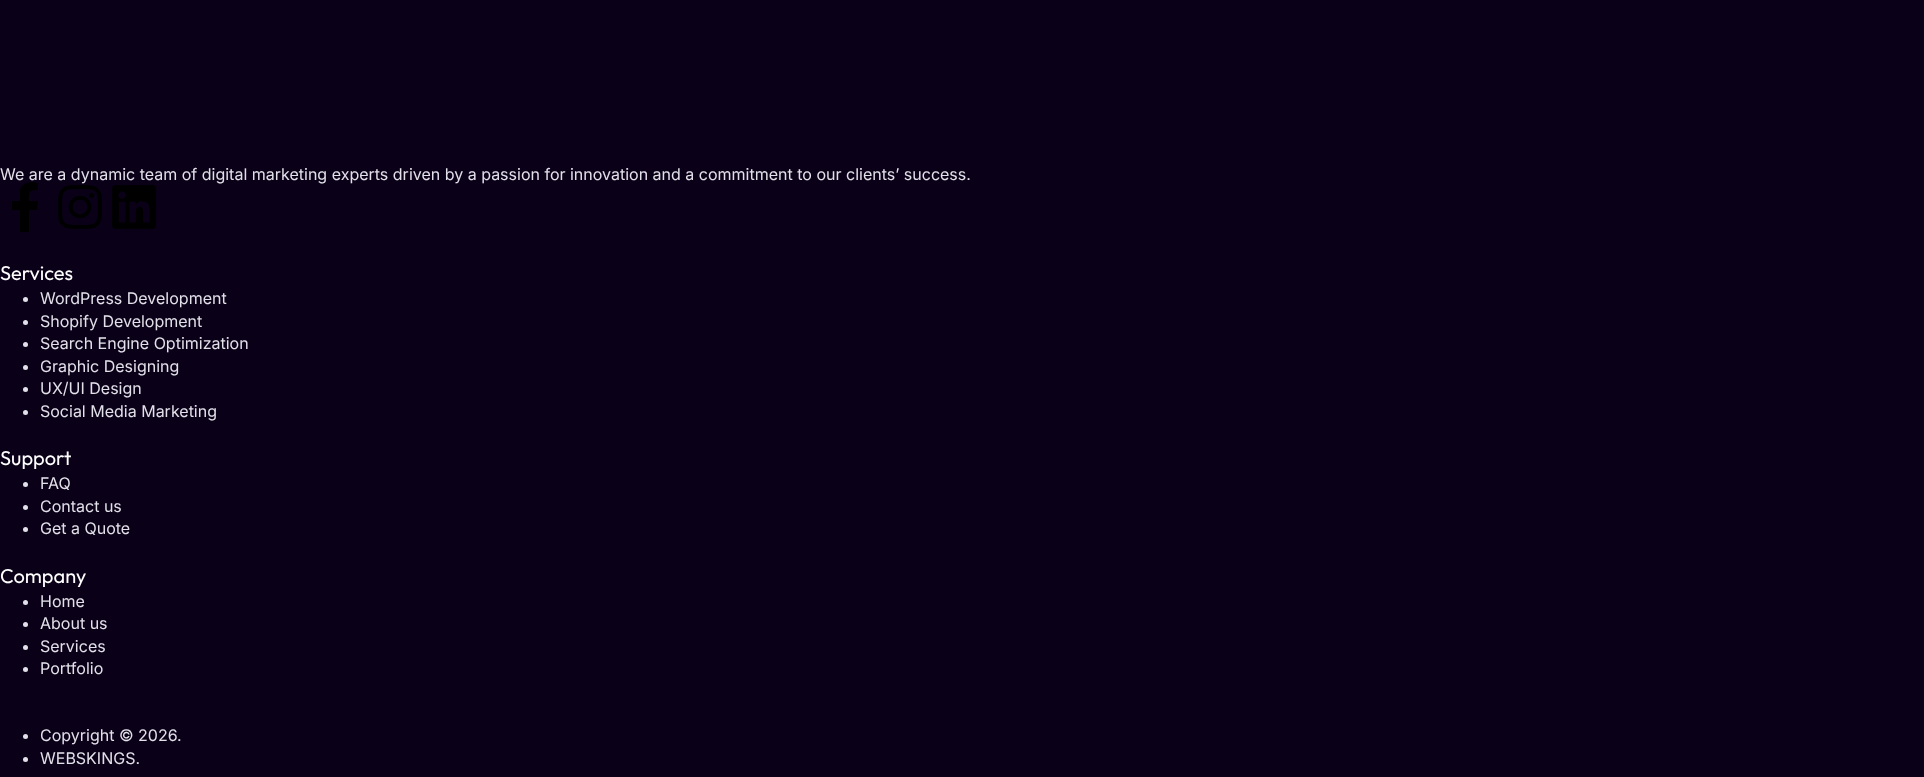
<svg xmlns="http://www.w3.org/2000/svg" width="1924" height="777">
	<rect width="100%" height="100%" fill="#0A0118" />
	<text x="0" y="180" font-family="Inter" font-size="16" fill="#E2E0E9">We are a dynamic team of digital marketing experts driven by a passion for innovation and a commitment to our clients’ success.</text>
	<path d="M37 210L38 201H29C29 192 28 190 38 190V183C31 181 21 182 20 191V201H12V210H20V232H29V210Z" fill="#000000" />
	<image x="58" y="185" width="44" height="44" href="assets/img1.png" />
	<image x="112" y="185" width="44" height="44" href="assets/img2.png" />
	<text x="0" y="280" font-family="Outfit" font-size="20" fill="#FFFFFF">Services</text>
	<circle cx="25.5" cy="299.5" r="2.5" fill="#E2E0E9" />
	<text x="40" y="304" font-family="Inter" font-size="16" fill="#E2E0E9">WordPress Development</text>
	<circle cx="25.5" cy="322.5" r="2.5" fill="#E2E0E9" />
	<text x="40" y="327" font-family="Inter" font-size="16" fill="#E2E0E9">Shopify Development</text>
	<circle cx="25.5" cy="344.5" r="2.5" fill="#E2E0E9" />
	<text x="40" y="349" font-family="Inter" font-size="16" fill="#E2E0E9">Search Engine Optimization</text>
	<circle cx="25.5" cy="367.5" r="2.5" fill="#E2E0E9" />
	<text x="40" y="372" font-family="Inter" font-size="16" fill="#E2E0E9">Graphic Designing</text>
	<circle cx="25.5" cy="389.5" r="2.5" fill="#E2E0E9" />
	<text x="40" y="394" font-family="Inter" font-size="16" fill="#E2E0E9">UX/UI Design</text>
	<circle cx="25.5" cy="412.5" r="2.5" fill="#E2E0E9" />
	<text x="40" y="417" font-family="Inter" font-size="16" fill="#E2E0E9">Social Media Marketing</text>
	<text x="0" y="465" font-family="Outfit" font-size="20" fill="#FFFFFF">Support</text>
	<circle cx="25.5" cy="484.5" r="2.5" fill="#E2E0E9" />
	<text x="40" y="489" font-family="Inter" font-size="16" fill="#E2E0E9">FAQ</text>
	<circle cx="25.5" cy="507.5" r="2.5" fill="#E2E0E9" />
	<text x="40" y="512" font-family="Inter" font-size="16" fill="#E2E0E9">Contact us</text>
	<circle cx="25.5" cy="529.5" r="2.5" fill="#E2E0E9" />
	<text x="40" y="534" font-family="Inter" font-size="16" fill="#E2E0E9">Get a Quote</text>
	<text x="0" y="583" font-family="Outfit" font-size="20" fill="#FFFFFF">Company</text>
	<circle cx="25.5" cy="602.5" r="2.5" fill="#E2E0E9" />
	<text x="40" y="607" font-family="Inter" font-size="16" fill="#E2E0E9">Home</text>
	<circle cx="25.5" cy="624.5" r="2.5" fill="#E2E0E9" />
	<text x="40" y="629" font-family="Inter" font-size="16" fill="#E2E0E9">About us</text>
	<circle cx="25.5" cy="647.5" r="2.5" fill="#E2E0E9" />
	<text x="40" y="652" font-family="Inter" font-size="16" fill="#E2E0E9">Services</text>
	<circle cx="25.5" cy="669.5" r="2.5" fill="#E2E0E9" />
	<text x="40" y="674" font-family="Inter" font-size="16" fill="#E2E0E9">Portfolio</text>
	<circle cx="25.5" cy="736.5" r="2.5" fill="#E2E0E9" />
	<text x="40" y="741" font-family="Inter" font-size="16" fill="#E2E0E9">Copyright © 2026.</text>
	<circle cx="25.5" cy="759.5" r="2.5" fill="#E2E0E9" />
	<text x="40" y="764" font-family="Inter" font-size="16" fill="#E2E0E9">WEBSKINGS.</text>
</svg>
